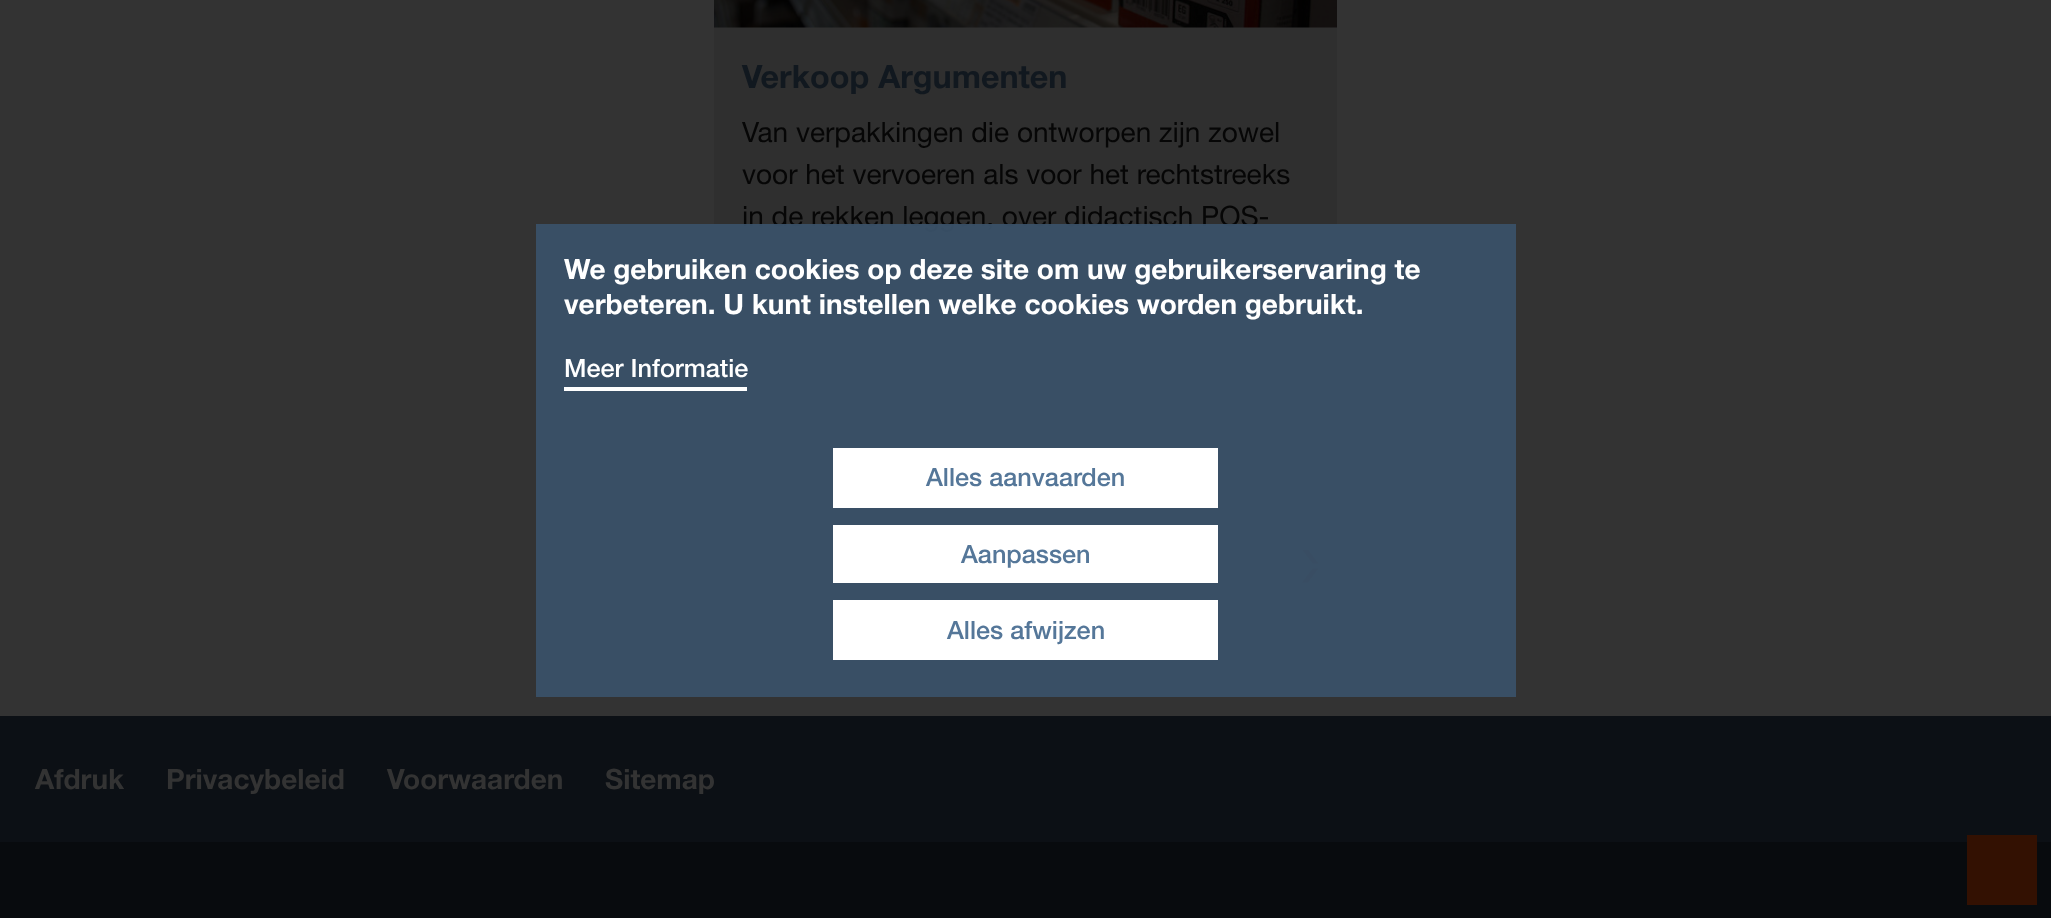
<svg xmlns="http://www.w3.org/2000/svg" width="2051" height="918">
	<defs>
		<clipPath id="clip1"><rect x="1286" y="550" width="34" height="33" /></clipPath>
	</defs>
	<rect width="100%" height="100%" fill="#333333" />
	<rect x="714" y="27" width="623" height="573" fill="#2F2F2F" />
	<image x="714" y="0" width="623" height="28" href="assets/img1.png" />
	<text x="742" y="88" font-family="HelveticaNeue" font-size="32.25" font-weight="700" fill="#11181F">Verkoop Argumenten</text>
	<g font-family="HelveticaNeue" font-size="28" fill="#060606">
		<text x="742" y="142">Van verpakkingen die ontworpen zijn zowel</text>
		<text x="742" y="184">voor het vervoeren als voor het rechtstreeks</text>
		<text x="742" y="226">in de rekken leggen, over didactisch POS-</text>
	</g>
	<rect x="1267" y="530" width="70" height="70" fill="#333333" />
	<g clip-path="url(#clip1)">
		<path d="M1302 549.5L1312.5 563.5H1318.5L1308 549.5Z" fill="#331102" fill-rule="evenodd" />
	</g>
	<path d="M1312.5 568.5L1302 582.5H1308L1318.5 568.5Z" fill="#331102" fill-rule="evenodd" />
	<rect x="0" y="716" width="2051" height="126" fill="#0C1015" />
	<g font-family="HelveticaNeue" font-size="28" font-weight="700" fill="#333333">
		<text x="35" y="789">Afdruk</text>
		<text x="166" y="789">Privacybeleid</text>
		<text x="387" y="789">Voorwaarden</text>
		<text x="605" y="789">Sitemap</text>
	</g>
	<rect x="0" y="842" width="2051" height="76" fill="#080B0E" />
	<rect x="536" y="224" width="980" height="473" fill="#3A5168" fill-opacity="0.95" />
	<g font-family="HelveticaNeue" font-size="28" font-weight="700" fill="#FFFFFF">
		<text x="564" y="279">We gebruiken cookies op deze site om uw gebruikerservaring te</text>
		<text x="564" y="314">verbeteren. U kunt instellen welke cookies worden gebruikt.</text>
	</g>
	<rect x="564" y="387" width="183" height="4" fill="#FFFFFF" />
	<text x="564" y="377" font-family="HelveticaNeue" font-size="25.25" font-weight="500" fill="#FFFFFF">Meer Informatie</text>
	<rect x="833" y="448" width="385" height="60" fill="#FFFFFF" />
	<text x="926" y="486" font-family="HelveticaNeue" font-size="25.25" font-weight="500" fill="#557799">Alles aanvaarden</text>
	<rect x="833" y="525" width="385" height="58" fill="#FFFFFF" />
	<text x="961" y="563" font-family="HelveticaNeue" font-size="25.25" font-weight="500" fill="#557799">Aanpassen</text>
	<rect x="833" y="600" width="385" height="60" fill="#FFFFFF" />
	<text x="947" y="639" font-family="HelveticaNeue" font-size="25.25" font-weight="500" fill="#557799">Alles afwijzen</text>
	<rect x="1967" y="835" width="70" height="70" fill="#331102" />
</svg>
